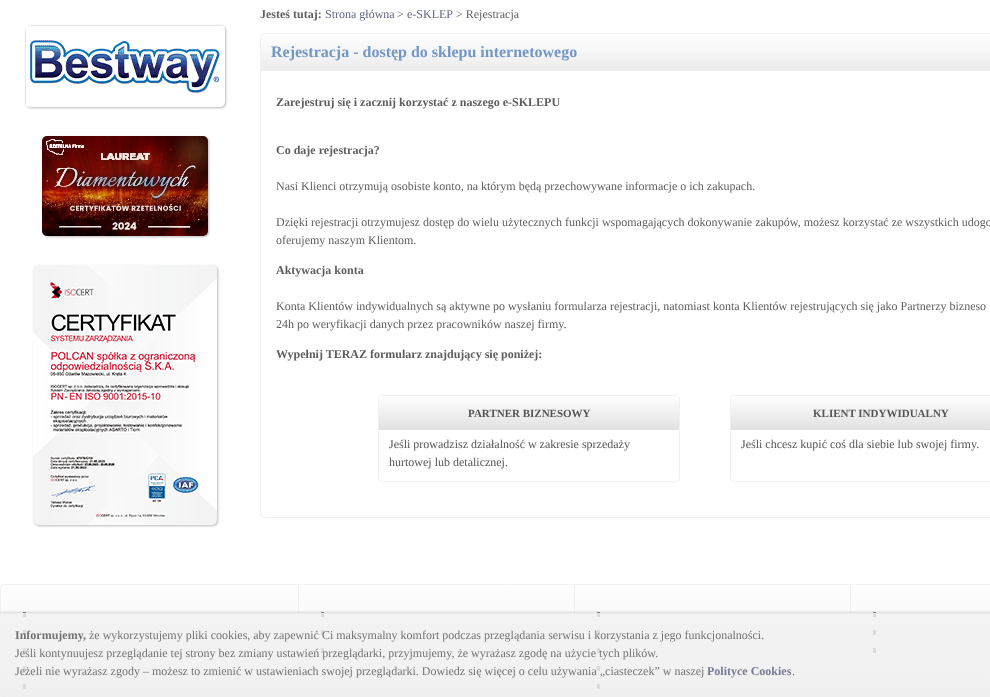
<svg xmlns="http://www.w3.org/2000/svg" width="990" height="697">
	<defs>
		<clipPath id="clip1"><path d="M265 33H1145C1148 33 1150 35 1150 38V71H260V38C260 35 262 33 265 33Z" /></clipPath>
		<linearGradient id="g1" gradientUnits="userSpaceOnUse" x1="705" y1="34" x2="705" y2="70"><stop offset="0" stop-color="#FFFFFF" /><stop offset="1" stop-color="#ECECEC" /></linearGradient>
		<linearGradient id="g2" gradientUnits="userSpaceOnUse" x1="529" y1="396" x2="529" y2="430"><stop offset="0" stop-color="#FFFFFF" /><stop offset="1" stop-color="#E1E1E1" /></linearGradient>
		<linearGradient id="g3" gradientUnits="userSpaceOnUse" x1="881" y1="396" x2="881" y2="430"><stop offset="0" stop-color="#FFFFFF" /><stop offset="1" stop-color="#E1E1E1" /></linearGradient>
		<clipPath id="clip2"><rect x="0" y="584" width="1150" height="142" rx="5" /></clipPath>
		<linearGradient id="g4" gradientUnits="userSpaceOnUse" x1="575" y1="585" x2="575" y2="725"><stop offset="0" stop-color="#FEFEFE" /><stop offset="1" stop-color="#ECECEC" /></linearGradient>
		<clipPath id="clip3"><rect x="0" y="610" width="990" height="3" /></clipPath>
	</defs>
	<rect width="100%" height="100%" fill="#FFFFFF" />
	<rect x="26" y="26" width="200" height="82" rx="5" fill="#BBBBBB" filter="blur(1px)" />
	<image x="26" y="26" width="199" height="81" href="assets/img1.png" />
	<rect x="43" y="137" width="166" height="100" rx="5" fill="#BBBBBB" filter="blur(1px)" />
	<image x="42" y="136" width="166" height="100" href="assets/img2.png" />
	<rect x="34" y="266" width="184" height="260" rx="5" fill="#BBBBBB" filter="blur(1px)" />
	<image x="33" y="265" width="184" height="260" href="assets/img3.png" />
	<text x="260" y="18" font-family="Liberation Serif" font-size="12" font-weight="700" fill="#5F5E5E">Jesteś tutaj:</text>
	<text x="325" y="18" font-family="Liberation Serif" font-size="12" fill="#626583">Strona główna</text>
	<text x="397" y="18" font-family="Liberation Serif" font-size="12" fill="#5F5E5E">&gt;</text>
	<text x="407" y="18" font-family="Liberation Serif" font-size="12" fill="#626583">e-SKLEP</text>
	<text x="456" y="18" font-family="Liberation Serif" font-size="12" fill="#5F5E5E">&gt; Rejestracja</text>
	<g clip-path="url(#clip1)">
		<rect x="260" y="34" width="730" height="36" fill="url(#g1)" />
	</g>
	<path d="M265 33.5H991C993.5 33.5 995.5 35.5 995.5 38V70.5H260.5V38C260.5 35.5 262.5 33.5 265 33.5Z" fill="none" stroke="#F1F1F1" />
	<text x="271" y="57" font-family="Liberation Serif" font-size="16" font-weight="700" fill="#7296C6">Rejestracja - dostęp do sklepu internetowego</text>
	<path d="M260 71H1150V513C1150 516 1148 518 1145 518H265C262 518 260 516 260 513ZM261 71H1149V513C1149 515 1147 517 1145 517H265C263 517 261 515 261 513Z" fill="#F1F1F1" fill-rule="evenodd" />
	<g font-family="Liberation Serif" font-size="12" font-weight="700" fill="#5F5E5E">
		<text x="276" y="106">Zarejestruj się i zacznij korzystać z naszego e-SKLEPU</text>
		<text x="276" y="154">Co daje rejestracja?</text>
	</g>
	<g font-family="Liberation Serif" font-size="12" fill="#5F5E5E">
		<text x="276" y="190">Nasi Klienci otrzymują osobiste konto, na którym będą przechowywane informacje o ich zakupach.</text>
		<text x="276" y="226">Dzięki rejestracji otrzymujesz dostęp do wielu użytecznych funkcji wspomagających dokonywanie zakupów, możesz korzystać ze wszystkich udogo</text>
		<text x="276" y="244">oferujemy naszym Klientom.</text>
	</g>
	<text x="276" y="274" font-family="Liberation Serif" font-size="12" font-weight="700" fill="#5F5E5E">Aktywacja konta</text>
	<g font-family="Liberation Serif" font-size="12" fill="#5F5E5E">
		<text x="276" y="310">Konta Klientów indywidualnych są aktywne po wysłaniu formularza rejestracji, natomiast konta Klientów rejestrujących się jako Partnerzy bizneso</text>
		<text x="276" y="328">24h po weryfikacji danych przez pracowników naszej firmy.</text>
	</g>
	<text x="276" y="358" font-family="Liberation Serif" font-size="12" font-weight="700" fill="#5F5E5E">Wypełnij TERAZ formularz znajdujący się poniżej:</text>
	<rect x="378.5" y="395.5" width="301" height="86" rx="3.5" fill="none" stroke="#F1F1F1" />
	<rect x="379" y="396" width="300" height="34" fill="url(#g2)" />
	<text x="468" y="417" font-family="Liberation Serif" font-size="11" font-weight="700" fill="#555555">PARTNER BIZNESOWY</text>
	<g font-family="Liberation Serif" font-size="12" fill="#555555">
		<text x="389" y="448">Jeśli prowadzisz działalność w zakresie sprzedaży</text>
		<text x="389" y="466">hurtowej lub detalicznej.</text>
	</g>
	<rect x="730.5" y="395.5" width="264" height="86" rx="3.5" fill="none" stroke="#F1F1F1" />
	<rect x="731" y="396" width="259" height="34" fill="url(#g3)" />
	<text x="813" y="417" font-family="Liberation Serif" font-size="11" font-weight="700" fill="#555555">KLIENT INDYWIDUALNY</text>
	<text x="741" y="448" font-family="Liberation Serif" font-size="12" fill="#555555">Jeśli chcesz kupić coś dla siebie lub swojej firmy.</text>
	<g clip-path="url(#clip2)">
		<rect x="0" y="585" width="990" height="112" fill="url(#g4)" />
	</g>
	<rect x="0.5" y="584.5" width="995" height="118" rx="4.5" fill="none" stroke="#F1F1F1" />
	<rect x="298" y="585" width="1" height="97" fill="#EFEFEF" />
	<rect x="23" y="612" width="3" height="5" fill="#5F5E5E" />
	<rect x="23" y="630" width="3" height="5" fill="#5F5E5E" />
	<rect x="23" y="648" width="3" height="5" fill="#5F5E5E" />
	<rect x="23" y="666" width="3" height="5" fill="#5F5E5E" />
	<rect x="23" y="684" width="3" height="5" fill="#5F5E5E" />
	<rect x="574" y="585" width="1" height="97" fill="#EFEFEF" />
	<rect x="321" y="612" width="3" height="5" fill="#5F5E5E" />
	<rect x="321" y="630" width="3" height="5" fill="#5F5E5E" />
	<rect x="321" y="648" width="3" height="5" fill="#5F5E5E" />
	<rect x="850" y="585" width="1" height="97" fill="#EFEFEF" />
	<rect x="597" y="612" width="3" height="5" fill="#5F5E5E" />
	<rect x="597" y="630" width="3" height="5" fill="#5F5E5E" />
	<rect x="597" y="648" width="3" height="5" fill="#5F5E5E" />
	<rect x="597" y="666" width="3" height="5" fill="#5F5E5E" />
	<rect x="597" y="684" width="3" height="5" fill="#5F5E5E" />
	<rect x="873" y="612" width="3" height="5" fill="#5F5E5E" />
	<rect x="873" y="630" width="3" height="5" fill="#5F5E5E" />
	<rect x="873" y="648" width="3" height="5" fill="#5F5E5E" />
	<g clip-path="url(#clip3)">
		<rect x="0" y="613" width="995" height="84" fill="#AAAAAA" fill-opacity="0.85" filter="blur(1.5px)" />
	</g>
	<rect x="1" y="613" width="989" height="76" fill="#F1F1F1" fill-opacity="0.85" />
	<rect x="0" y="613" width="990" height="1" fill="#ECECEC" fill-opacity="0.85" />
	<text x="15" y="639" font-family="Liberation Serif" font-size="12" font-weight="700" fill="#747474">Informujemy,</text>
	<g font-family="Liberation Serif" font-size="12" fill="#747474">
		<text x="89" y="639">że wykorzystujemy pliki cookies, aby zapewnić Ci maksymalny komfort podczas przeglądania serwisu i korzystania z jego funkcjonalności.</text>
		<text x="15" y="657">Jeśli kontynuujesz przeglądanie tej strony bez zmiany ustawień przeglądarki, przyjmujemy, że wyrażasz zgodę na użycie tych plików.</text>
		<text x="15" y="675">Jeżeli nie wyrażasz zgody – możesz to zmienić w ustawieniach swojej przeglądarki. Dowiedz się więcej o celu używania „ciasteczek” w naszej</text>
	</g>
	<text x="707" y="675" font-family="Liberation Serif" font-size="12" font-weight="700" fill="#787A94">Polityce Cookies</text>
	<text x="792" y="675" font-family="Liberation Serif" font-size="12" fill="#747474">.</text>
</svg>
